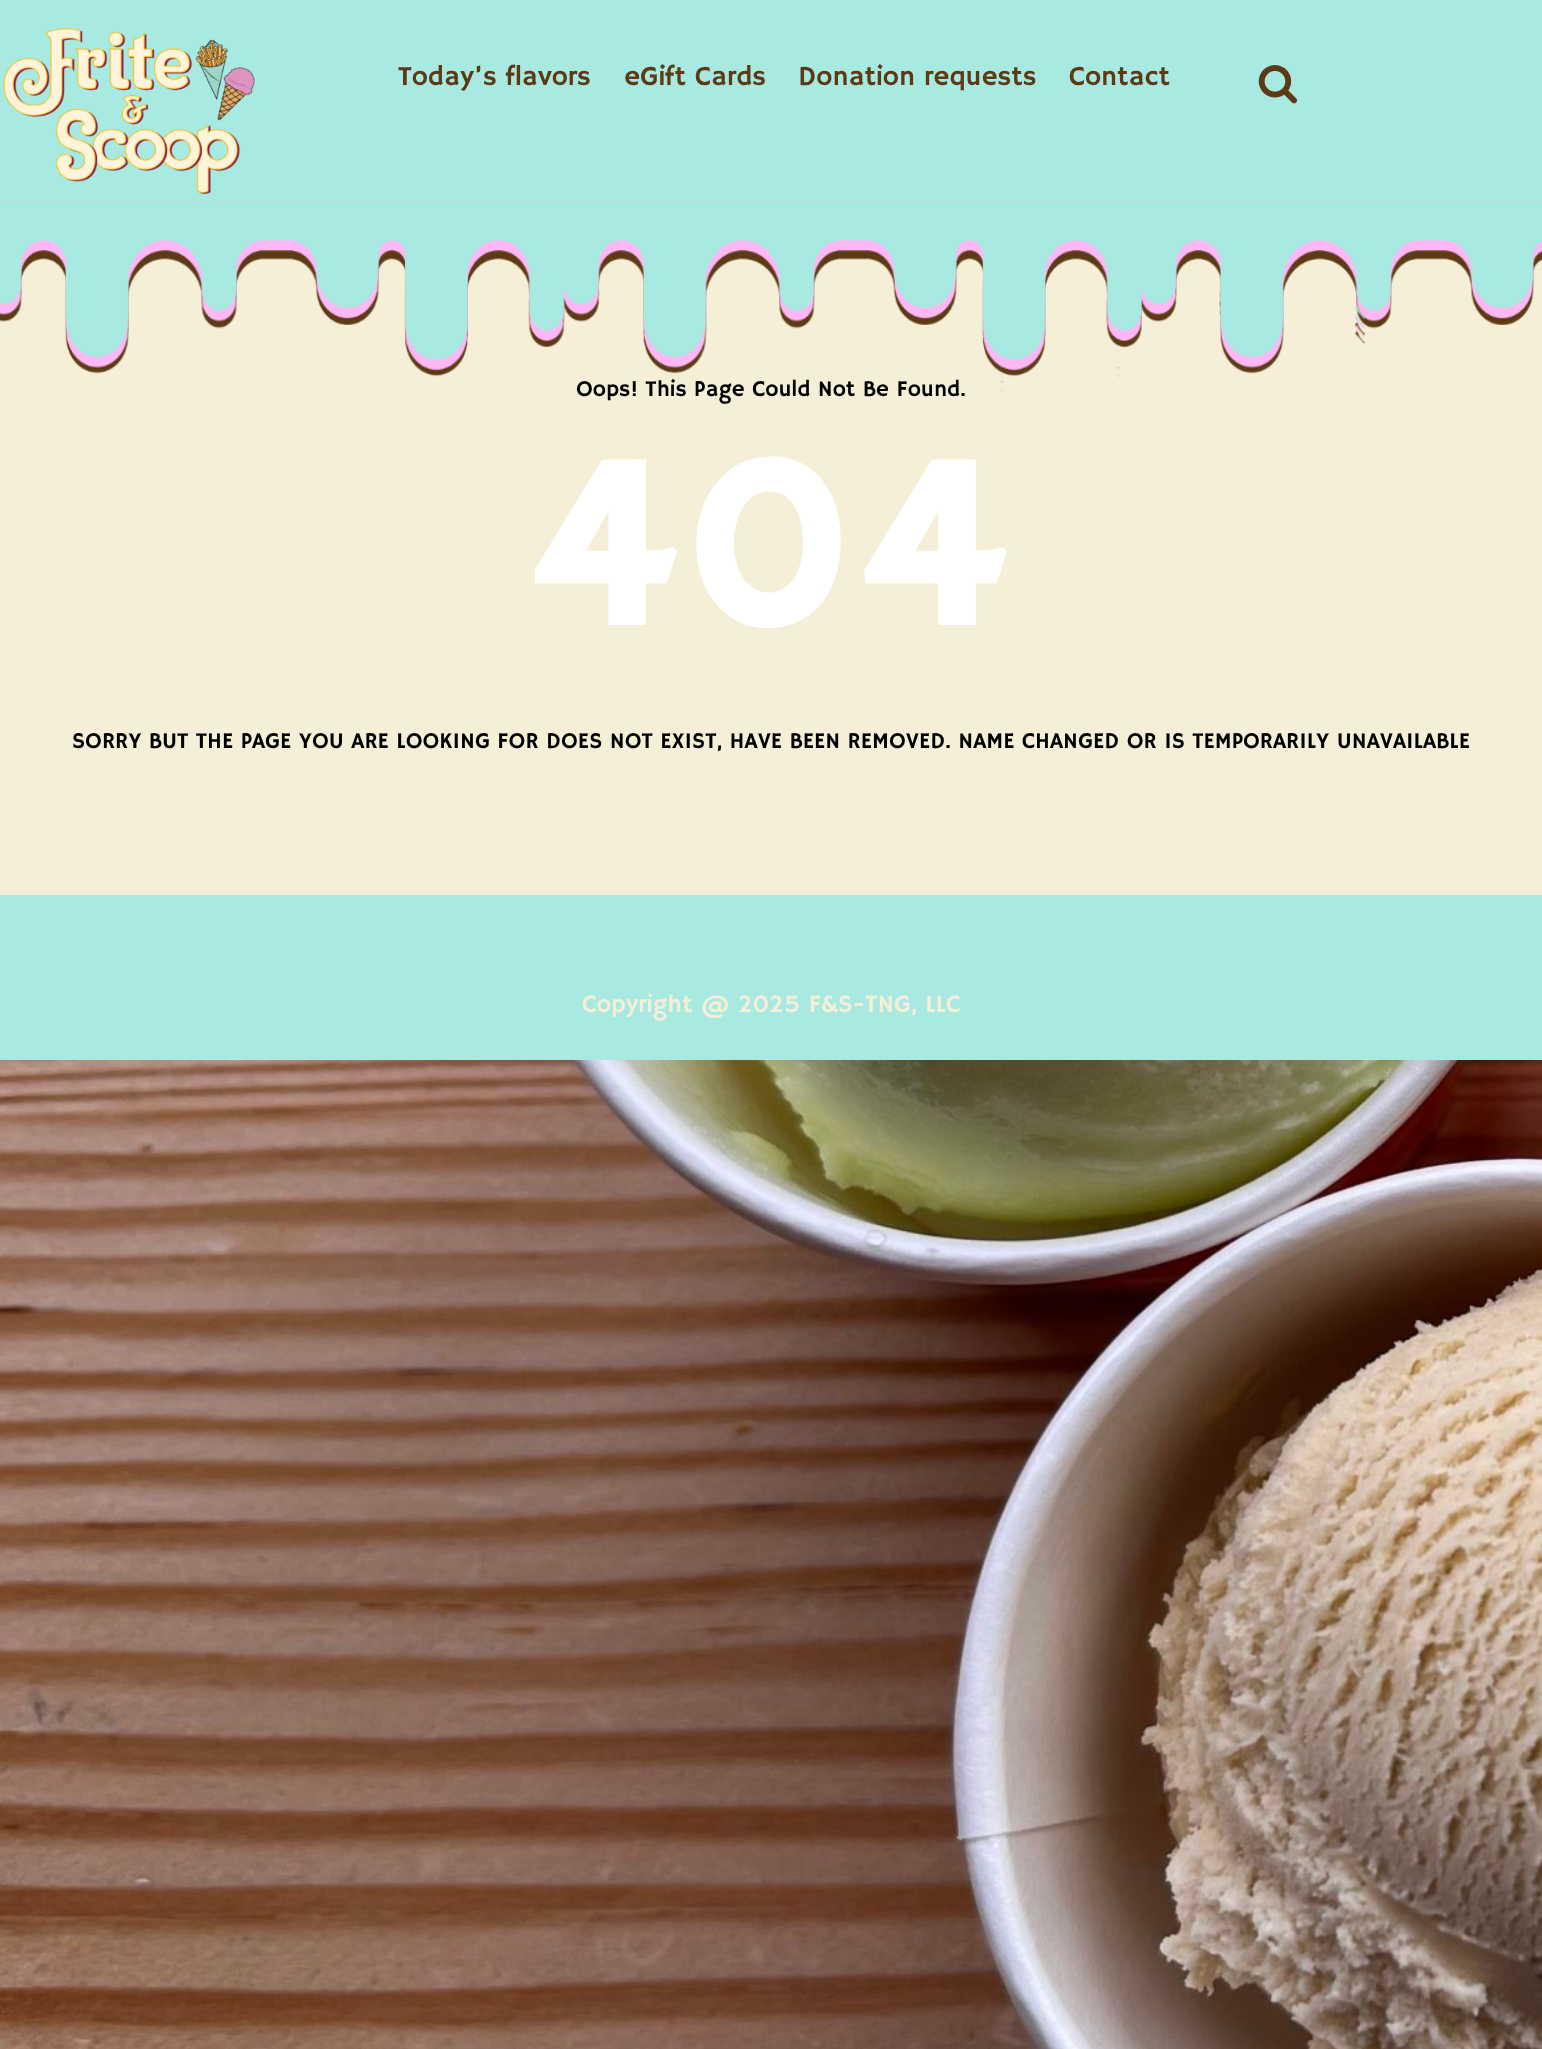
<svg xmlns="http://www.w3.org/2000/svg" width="1542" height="2049">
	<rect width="100%" height="100%" fill="#FFFFFF" />
	<image x="0" y="1060" width="1542" height="989" href="assets/img1.png" />
	<rect x="0" y="0" width="1542" height="203" fill="#A8EAE1" />
	<image x="3" y="28" width="252" height="167" href="assets/img2.png" />
	<g font-family="Hammersmith One" font-size="27.5" fill="#5B3A15">
		<text x="398" y="85">Today’s flavors</text>
		<text x="624" y="85">eGift Cards</text>
		<text x="798" y="85">Donation requests</text>
		<text x="1069" y="85">Contact</text>
	</g>
	<image x="1258" y="65" width="39" height="39" href="assets/img3.png" />
	<rect x="0" y="258" width="1542" height="637" fill="#F5EFD7" />
	<text x="576" y="396" font-family="Hammersmith One" font-size="22.5" fill="#000000">Oops! This Page Could Not Be Found.</text>
	<image x="0" y="202" width="1542" height="189" href="assets/img4.png" />
	<image x="0" y="202" width="1542" height="184" href="assets/img5.png" />
	<image x="0" y="202" width="1542" height="174" href="assets/img6.png" />
	<text x="529" y="625" font-family="Hammersmith One" font-size="244" font-weight="700" letter-spacing="12.5" fill="#FFFFFF">404</text>
	<text x="72" y="748" font-family="Hammersmith One" font-size="22.5" fill="#000000">SORRY BUT THE PAGE YOU ARE LOOKING FOR DOES NOT EXIST, HAVE BEEN REMOVED. NAME CHANGED OR IS TEMPORARILY UNAVAILABLE</text>
	<rect x="0" y="895" width="1542" height="165" fill="#A8EAE1" />
	<text x="582" y="1012" font-family="Hammersmith One" font-size="25" fill="#F5EFD7">Copyright @ 2025 F&amp;S-TNG, LLC</text>
</svg>
